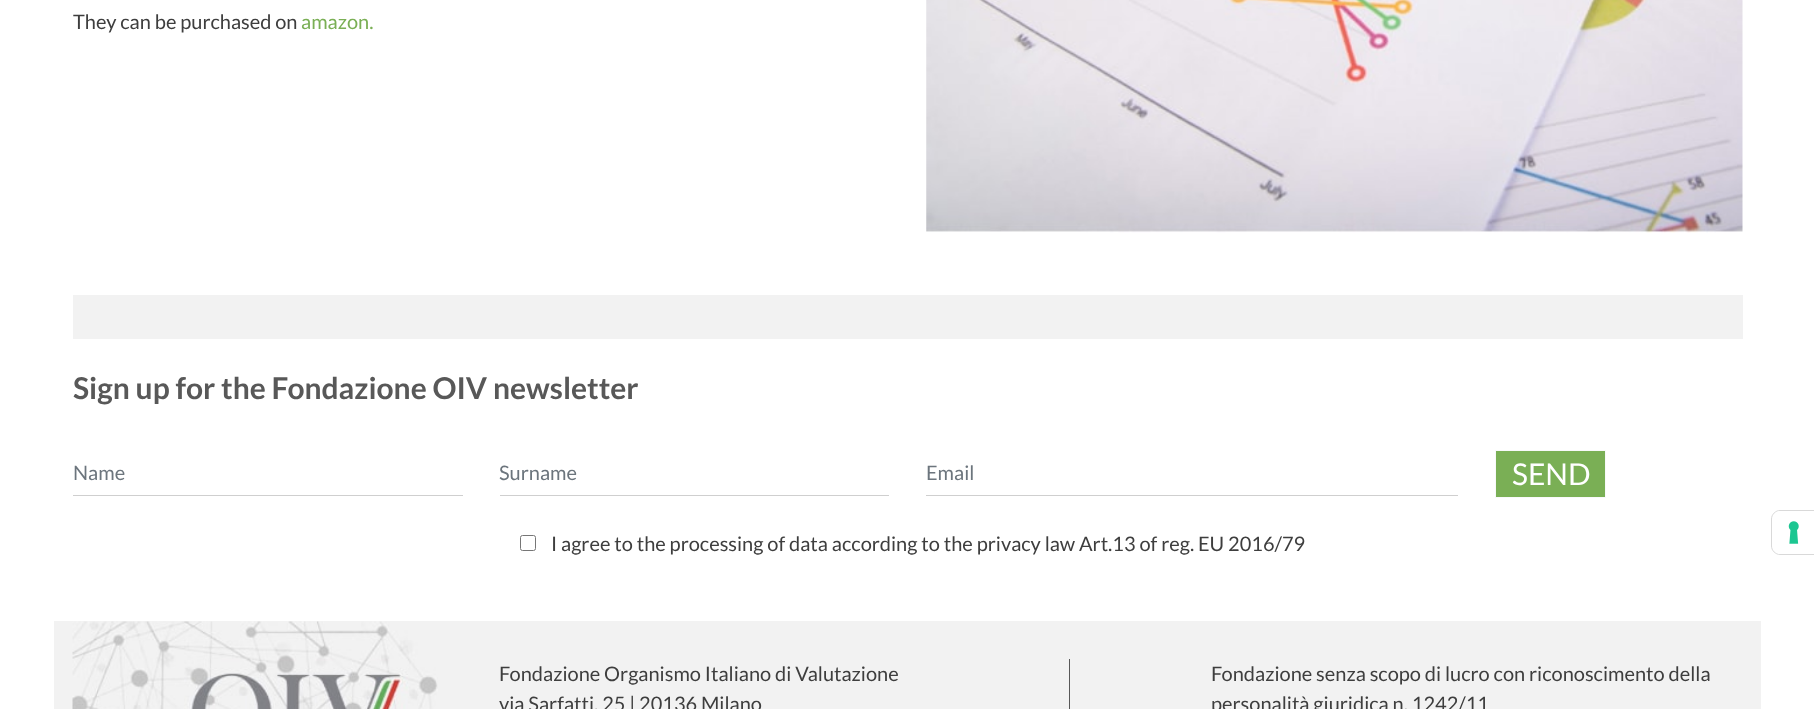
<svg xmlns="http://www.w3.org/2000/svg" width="1814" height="709">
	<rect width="100%" height="100%" fill="#FFFFFF" />
	<text x="73" y="29" font-family="Lato" font-size="20" fill="#3E3E3E">They can be purchased on</text>
	<text x="301" y="29" font-family="Lato" font-size="20" fill="#7AAF55">amazon.</text>
	<image x="926" y="0" width="817" height="233" href="assets/img1.png" />
	<rect x="73" y="295" width="1670" height="44" fill="#F2F2F2" />
	<text x="73" y="399" font-family="Lato" font-size="30" font-weight="700" fill="#585858">Sign up for the Fondazione OIV newsletter</text>
	<rect x="73" y="495" width="390" height="1" fill="#CFCFCF" />
	<text x="73" y="480" font-family="Lato" font-size="20" fill="#6C757D">Name</text>
	<rect x="500" y="495" width="389" height="1" fill="#CFCFCF" />
	<text x="499" y="480" font-family="Lato" font-size="20" fill="#6C757D">Surname</text>
	<rect x="926" y="495" width="532" height="1" fill="#CFCFCF" />
	<text x="926" y="480" font-family="Lato" font-size="20" fill="#6C757D">Email</text>
	<rect x="1495.5" y="450.5" width="110" height="47" fill="#7AAF55" stroke="#F8F9FA" />
	<text x="1512" y="485" font-family="Lato" font-size="30" fill="#FFFFFF">SEND</text>
	<rect x="520.5" y="535.5" width="15" height="15" rx="2" fill="none" stroke="#767676" />
	<text x="551" y="551" font-family="Lato" font-size="20" fill="#3E3E3E">I agree to the processing of data according to the privacy law Art.13 of reg. EU 2016/79</text>
	<rect x="54" y="621" width="1707" height="88" fill="#F2F2F2" />
	<image x="72" y="621" width="366" height="88" href="assets/img2.png" />
	<g font-family="Lato" font-size="20" fill="#3E3E3E">
		<text x="499" y="681">Fondazione Organismo Italiano di Valutazione</text>
		<text x="499" y="711">via Sarfatti. 25 | 20136 Milano</text>
	</g>
	<rect x="1069" y="659" width="1" height="50" fill="#585858" />
	<g font-family="Lato" font-size="20" fill="#3E3E3E">
		<text x="1211" y="681">Fondazione senza scopo di lucro con riconoscimento della</text>
		<text x="1211" y="711">personalità giuridica n. 1242/11</text>
	</g>
	<path d="M1780 510.5H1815.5V554.5H1780C1775.5 554.5 1771.5 550.5 1771.5 546V519C1771.5 514.5 1775.5 510.5 1780 510.5Z" fill="none" stroke="#D9D9D9" />
	<path d="M1781 511H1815V554H1781C1776.5 554 1773 550.5 1773 546V519C1773 514.5 1776.5 511 1781 511Z" fill="#FFFFFF" />
	<image x="1788" y="521" width="11" height="23" href="assets/img3.png" />
</svg>
